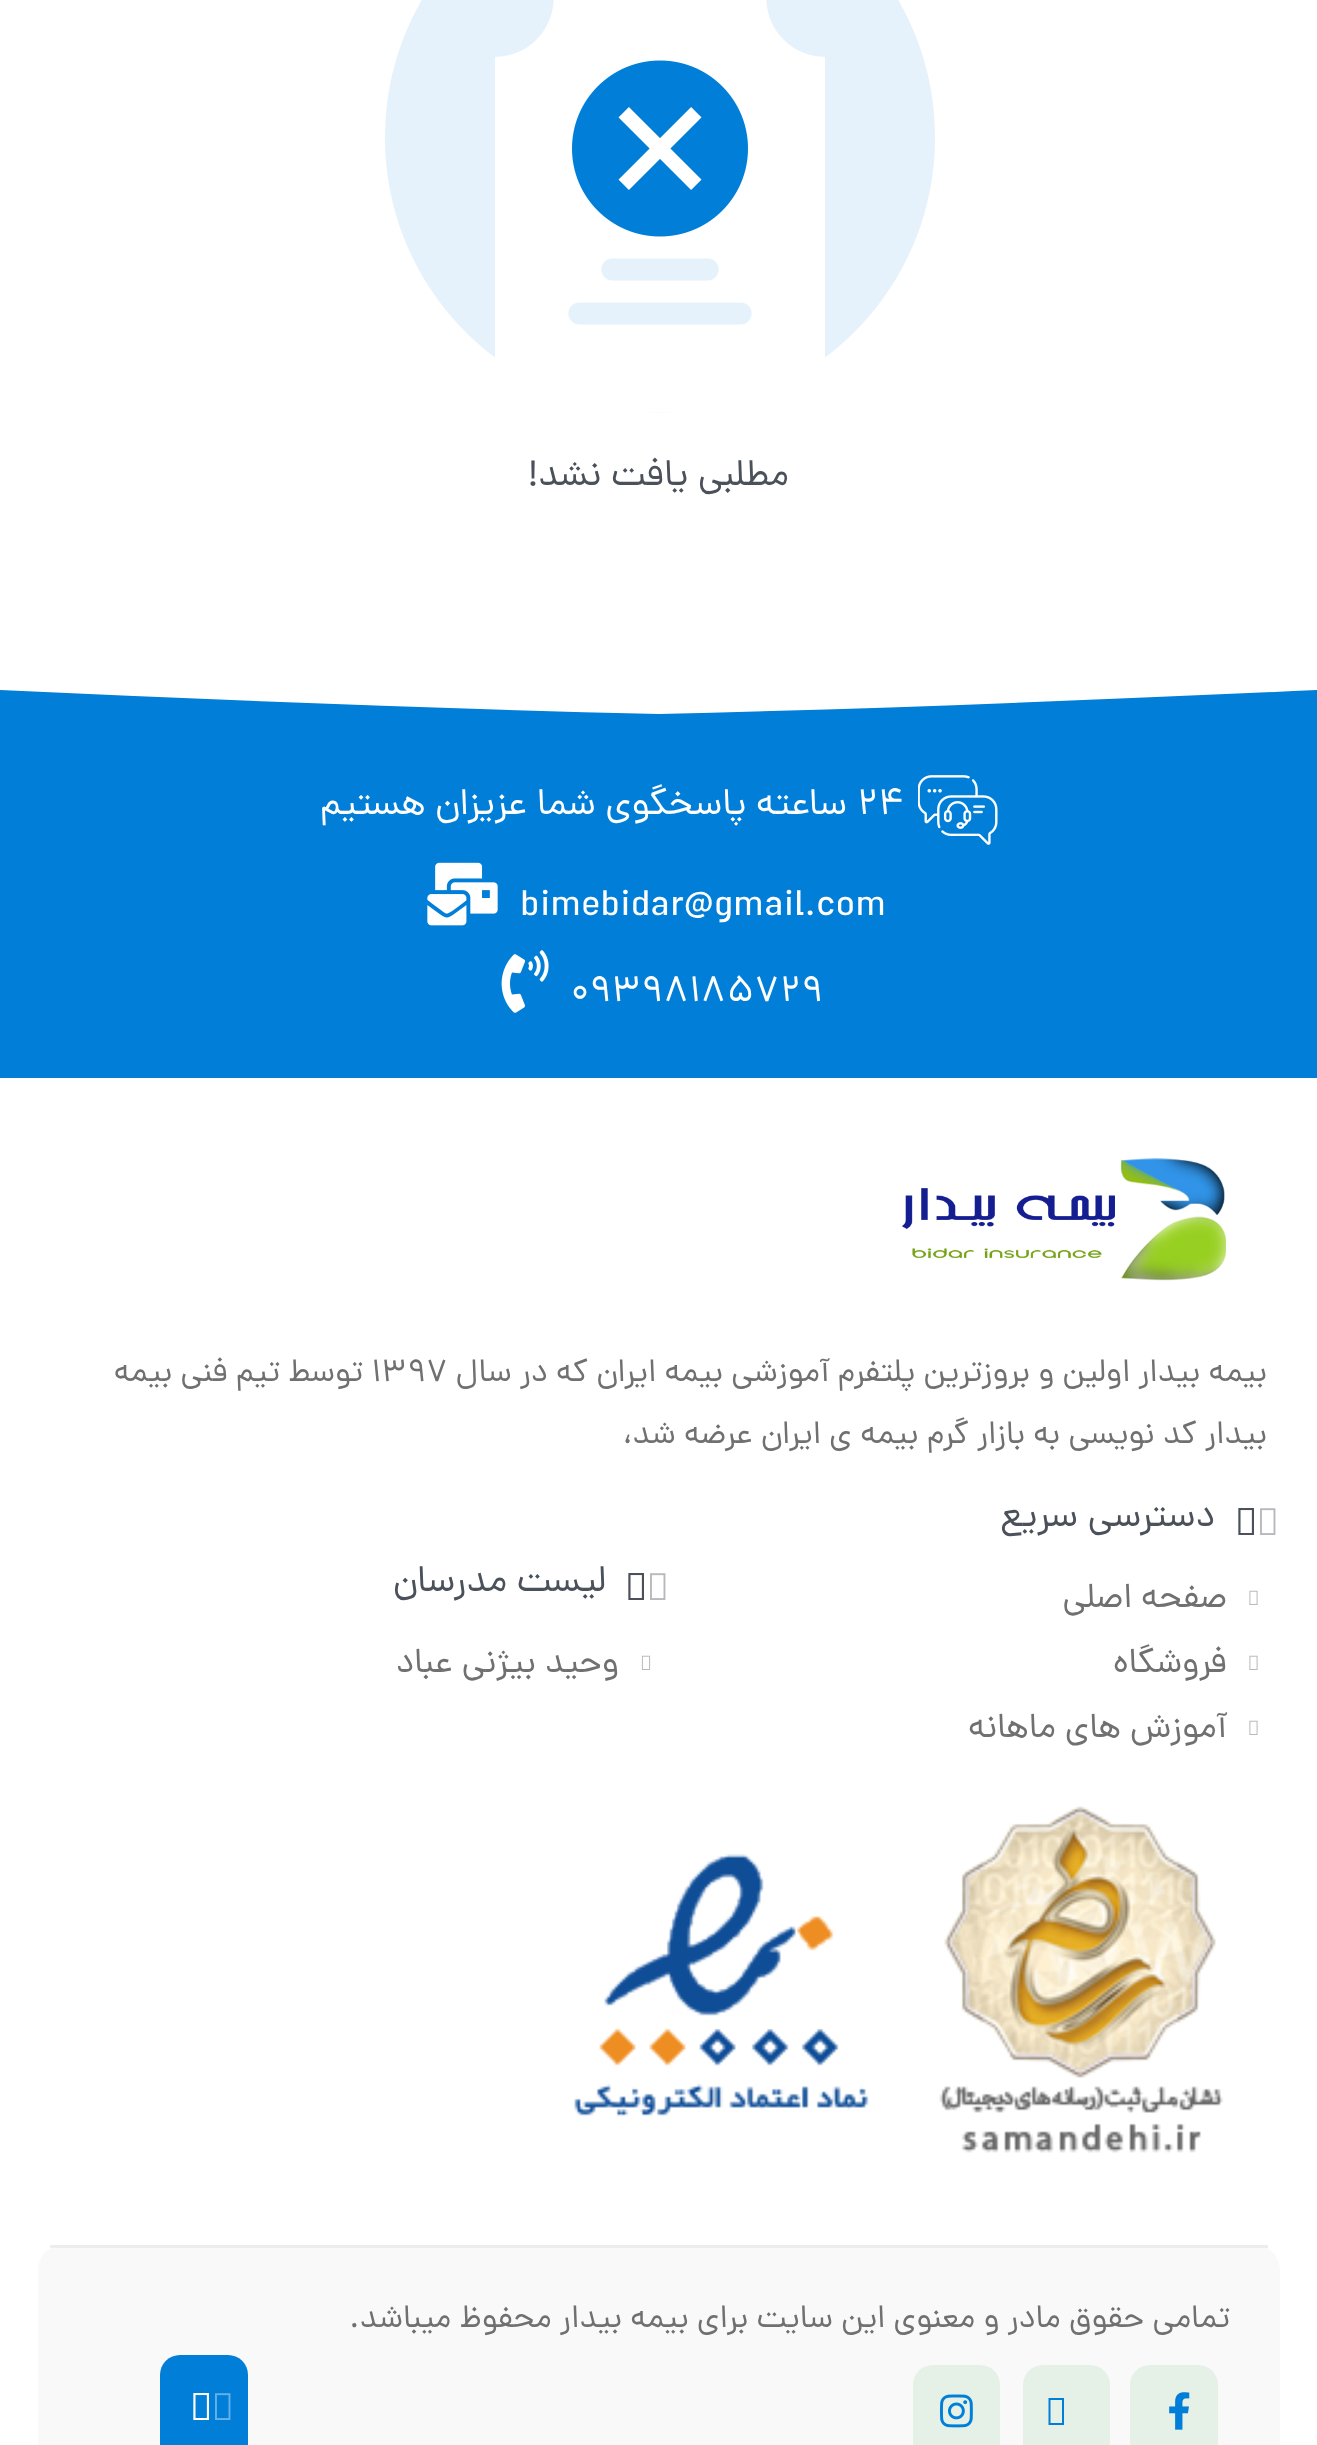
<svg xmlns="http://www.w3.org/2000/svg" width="1317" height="2445">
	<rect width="100%" height="100%" fill="#FFFFFF" />
	<image x="385" y="0" width="550" height="413" href="assets/img1.png" />
	<text x="789" y="485" font-family="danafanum" font-size="37.5" direction="rtl" fill="#4B515A">مطلبی یافت نشد!</text>
	<path d="M0 690C220 700 439 709 659 714C878 719 1098 719 1317 719H0Z" fill="#007ED8" />
	<path d="M0 719C220 719 439 719 659 714C878 709 1098 700 1317 690V719Z" fill="#007ED8" />
	<rect x="0" y="719" width="1317" height="359" fill="#007ED8" />
	<image x="918" y="775" width="80" height="70" href="assets/img2.png" />
	<text x="857" y="814" font-family="danafanum" font-size="37.5" fill="#FFFFFF">۲۴</text>
	<text x="847" y="814" font-family="danafanum" font-size="37.5" direction="rtl" fill="#FFFFFF">ساعته پاسخگوی شما عزیزان هستیم</text>
	<text x="520" y="915" font-family="danafanum" font-size="37.5" fill="#FFFFFF">bimebidar@gmail.com</text>
	<image x="427" y="862" width="71" height="64" href="assets/img3.png" />
	<text x="570" y="1001" font-family="danafanum" font-size="37.5" fill="#FFFFFF">09398185729</text>
	<image x="501" y="950" width="48" height="63" href="assets/img4.png" />
	<image x="902" y="1158" width="324" height="123" href="assets/img5.png" />
	<text x="1267" y="1381" font-family="danafanum" font-size="32.5" direction="rtl" fill="#717070">بیمه بیدار اولین و بروزترین پلتفرم آموزشی بیمه ایران که در سال</text>
	<text x="371" y="1381" font-family="danafanum" font-size="32.5" fill="#717070">1397</text>
	<g font-family="danafanum" font-size="32.5" direction="rtl" fill="#717070">
		<text x="363" y="1381">توسط تیم فنی بیمه</text>
		<text x="1267" y="1443">بیدار کد نویسی به بازار گرم بیمه ی ایران عرضه شد،</text>
	</g>
	<path d="M1238.5 1535V1508H1254V1535ZM1240.5 1533H1252V1510H1240.5Z" fill="#4B515A" />
	<image x="1238" y="1508" width="38" height="27" href="assets/img6.png" />
	<text x="1215" y="1526" font-family="danafanum" font-size="37.5" direction="rtl" fill="#4B515A">دسترسی سریع</text>
	<image x="1249" y="1590" width="9" height="15" href="assets/img7.png" />
	<text x="1227" y="1607" font-family="danafanum" font-size="35" direction="rtl" fill="#717070">صفحه اصلی</text>
	<image x="1249" y="1655" width="9" height="15" href="assets/img7.png" />
	<text x="1227" y="1672" font-family="danafanum" font-size="35" direction="rtl" fill="#717070">فروشگاه</text>
	<image x="1249" y="1720" width="9" height="15" href="assets/img7.png" />
	<text x="1227" y="1737" font-family="danafanum" font-size="35" direction="rtl" fill="#717070">آموزش های ماهانه</text>
	<path d="M628.5 1600V1573H644V1600ZM630.5 1598H642V1575H630.5Z" fill="#4B515A" />
	<image x="628" y="1573" width="38" height="27" href="assets/img6.png" />
	<text x="606" y="1591" font-family="danafanum" font-size="37.5" direction="rtl" fill="#4B515A">لیست مدرسان</text>
	<image x="641" y="1655" width="10" height="15" href="assets/img8.png" />
	<text x="619" y="1672" font-family="danafanum" font-size="35" direction="rtl" fill="#717070">وحید بیژنی عباد</text>
	<image x="939" y="1806" width="285" height="347" href="assets/img9.png" />
	<image x="574" y="1854" width="295" height="263" href="assets/img10.png" />
	<rect x="38" y="2245" width="1242" height="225" rx="25" fill="#F9F9F9" />
	<rect x="50" y="2245" width="1218" height="3" fill="#EDEDED" />
	<text x="1230" y="2327" font-family="danafanum" font-size="32.5" direction="rtl" fill="#717070">تمامی حقوق مادر و معنوی این سایت برای بیمه بیدار محفوظ میباشد.</text>
	<rect x="1130" y="2365" width="88" height="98" rx="20" fill="#E5F0E7" />
	<image x="1169" y="2392" width="21" height="38" href="assets/img11.png" />
	<rect x="1023" y="2365" width="87" height="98" rx="20" fill="#E5F0E7" />
	<path d="M1048.5 2425V2398H1064V2425ZM1050.5 2423H1062V2400H1050.5Z" fill="#007ED8" />
	<rect x="913" y="2365" width="87" height="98" rx="20" fill="#E5F0E7" />
	<image x="940" y="2394" width="33" height="34" href="assets/img12.png" />
	<rect x="160" y="2355" width="88" height="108" rx="20" fill="#007ED8" />
	<path d="M193.5 2420V2393H209V2420ZM195.5 2418H207V2395H195.5Z" fill="#FFFFFF" />
	<image x="193" y="2393" width="38" height="27" href="assets/img13.png" />
</svg>
